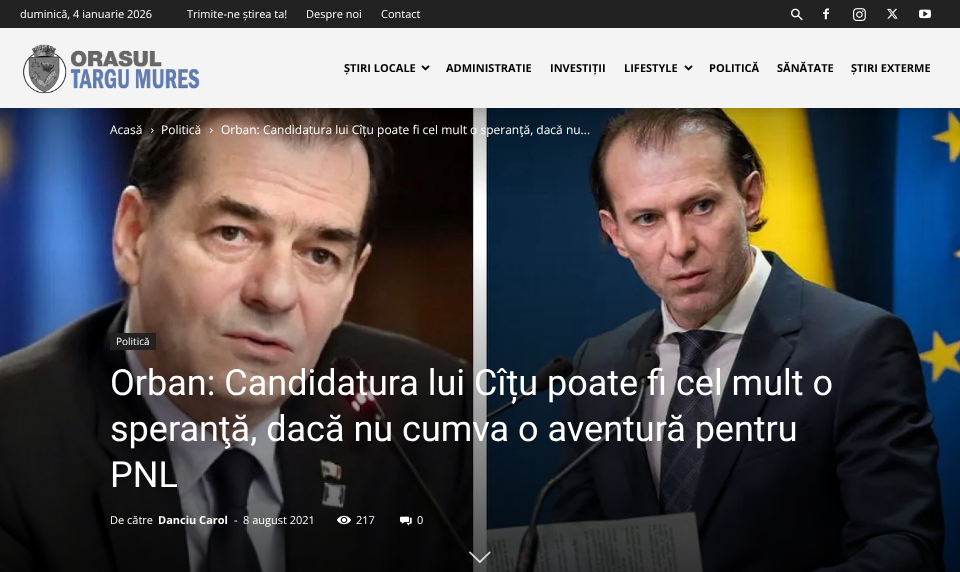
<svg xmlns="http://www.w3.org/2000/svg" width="960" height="572">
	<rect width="100%" height="100%" fill="#FFFFFF" />
	<rect x="0" y="0" width="960" height="28" fill="#222222" />
	<g font-family="Open Sans" font-size="11" fill="#FFFFFF">
		<text x="20" y="18">duminică, 4 ianuarie 2026</text>
		<text x="187" y="18">Trimite-ne știrea ta!</text>
		<text x="306" y="18">Despre noi</text>
		<text x="381" y="18">Contact</text>
	</g>
	<image x="791" y="8" width="12" height="13" href="assets/img1.png" />
	<image x="823" y="8" width="6" height="12" href="assets/img2.png" />
	<image x="853" y="8" width="13" height="13" href="assets/img3.png" />
	<image x="887" y="8" width="11" height="11" href="assets/img4.png" />
	<image x="919" y="9" width="12" height="10" href="assets/img5.png" />
	<rect x="0" y="28" width="960" height="80" fill="#F4F4F4" />
	<image x="23" y="44" width="177" height="50" href="assets/img6.png" />
	<text x="344" y="72" font-family="Open Sans" font-size="11" font-weight="700" fill="#000000">ȘTIRI LOCALE</text>
	<image x="421" y="65" width="9" height="6" href="assets/img7.png" />
	<g font-family="Open Sans" font-size="11" font-weight="700" fill="#000000">
		<text x="446" y="72">ADMINISTRATIE</text>
		<text x="550" y="72">INVESTIȚII</text>
		<text x="624" y="72">LIFESTYLE</text>
	</g>
	<image x="684" y="65" width="9" height="6" href="assets/img7.png" />
	<g font-family="Open Sans" font-size="11" font-weight="700" fill="#000000">
		<text x="709" y="72">POLITICĂ</text>
		<text x="777" y="72">SĂNĂTATE</text>
		<text x="851" y="72">ȘTIRI EXTERME</text>
	</g>
	<image x="0" y="108" width="960" height="464" href="assets/img9.png" />
	<image x="0" y="108" width="960" height="9" href="assets/img8.png" />
	<text x="110" y="134" font-family="Open Sans" font-size="12" fill="#FFFFFF">Acasă</text>
	<image x="151" y="128" width="3" height="5" href="assets/img10.png" />
	<text x="161" y="134" font-family="Open Sans" font-size="12" fill="#FFFFFF">Politică</text>
	<image x="210" y="128" width="3" height="5" href="assets/img11.png" />
	<text x="221" y="134" font-family="Open Sans" font-size="12" fill="#FFFFFF">Orban: Candidatura lui Cîțu poate fi cel mult o speranţă, dacă nu...</text>
	<rect x="110" y="333" width="46" height="17" fill="#222222" />
	<text x="116" y="345" font-family="Open Sans" font-size="10" fill="#FFFFFF">Politică</text>
	<g font-family="Roboto" font-size="36" fill="#FFFFFF">
		<text x="110" y="395">Orban: Candidatura lui Cîțu poate fi cel mult o</text>
		<text x="110" y="441">speranţă, dacă nu cumva o aventură pentru</text>
		<text x="110" y="487">PNL</text>
	</g>
	<text x="110" y="524" font-family="Open Sans" font-size="11" fill="#FFFFFF">De către</text>
	<text x="158" y="524" font-family="Open Sans" font-size="11" font-weight="700" fill="#FFFFFF">Danciu Carol</text>
	<g font-family="Open Sans" font-size="11" fill="#FFFFFF">
		<text x="234" y="524">-</text>
		<text x="243" y="524">8 august 2021</text>
	</g>
	<image x="337" y="515" width="14" height="10" href="assets/img12.png" />
	<text x="356" y="524" font-family="Open Sans" font-size="11" fill="#FFFFFF">217</text>
	<image x="400" y="516" width="12" height="10" href="assets/img13.png" />
	<text x="417" y="524" font-family="Open Sans" font-size="11" fill="#FFFFFF">0</text>
	<image x="469" y="551" width="22" height="12" href="assets/img14.png" />
</svg>
